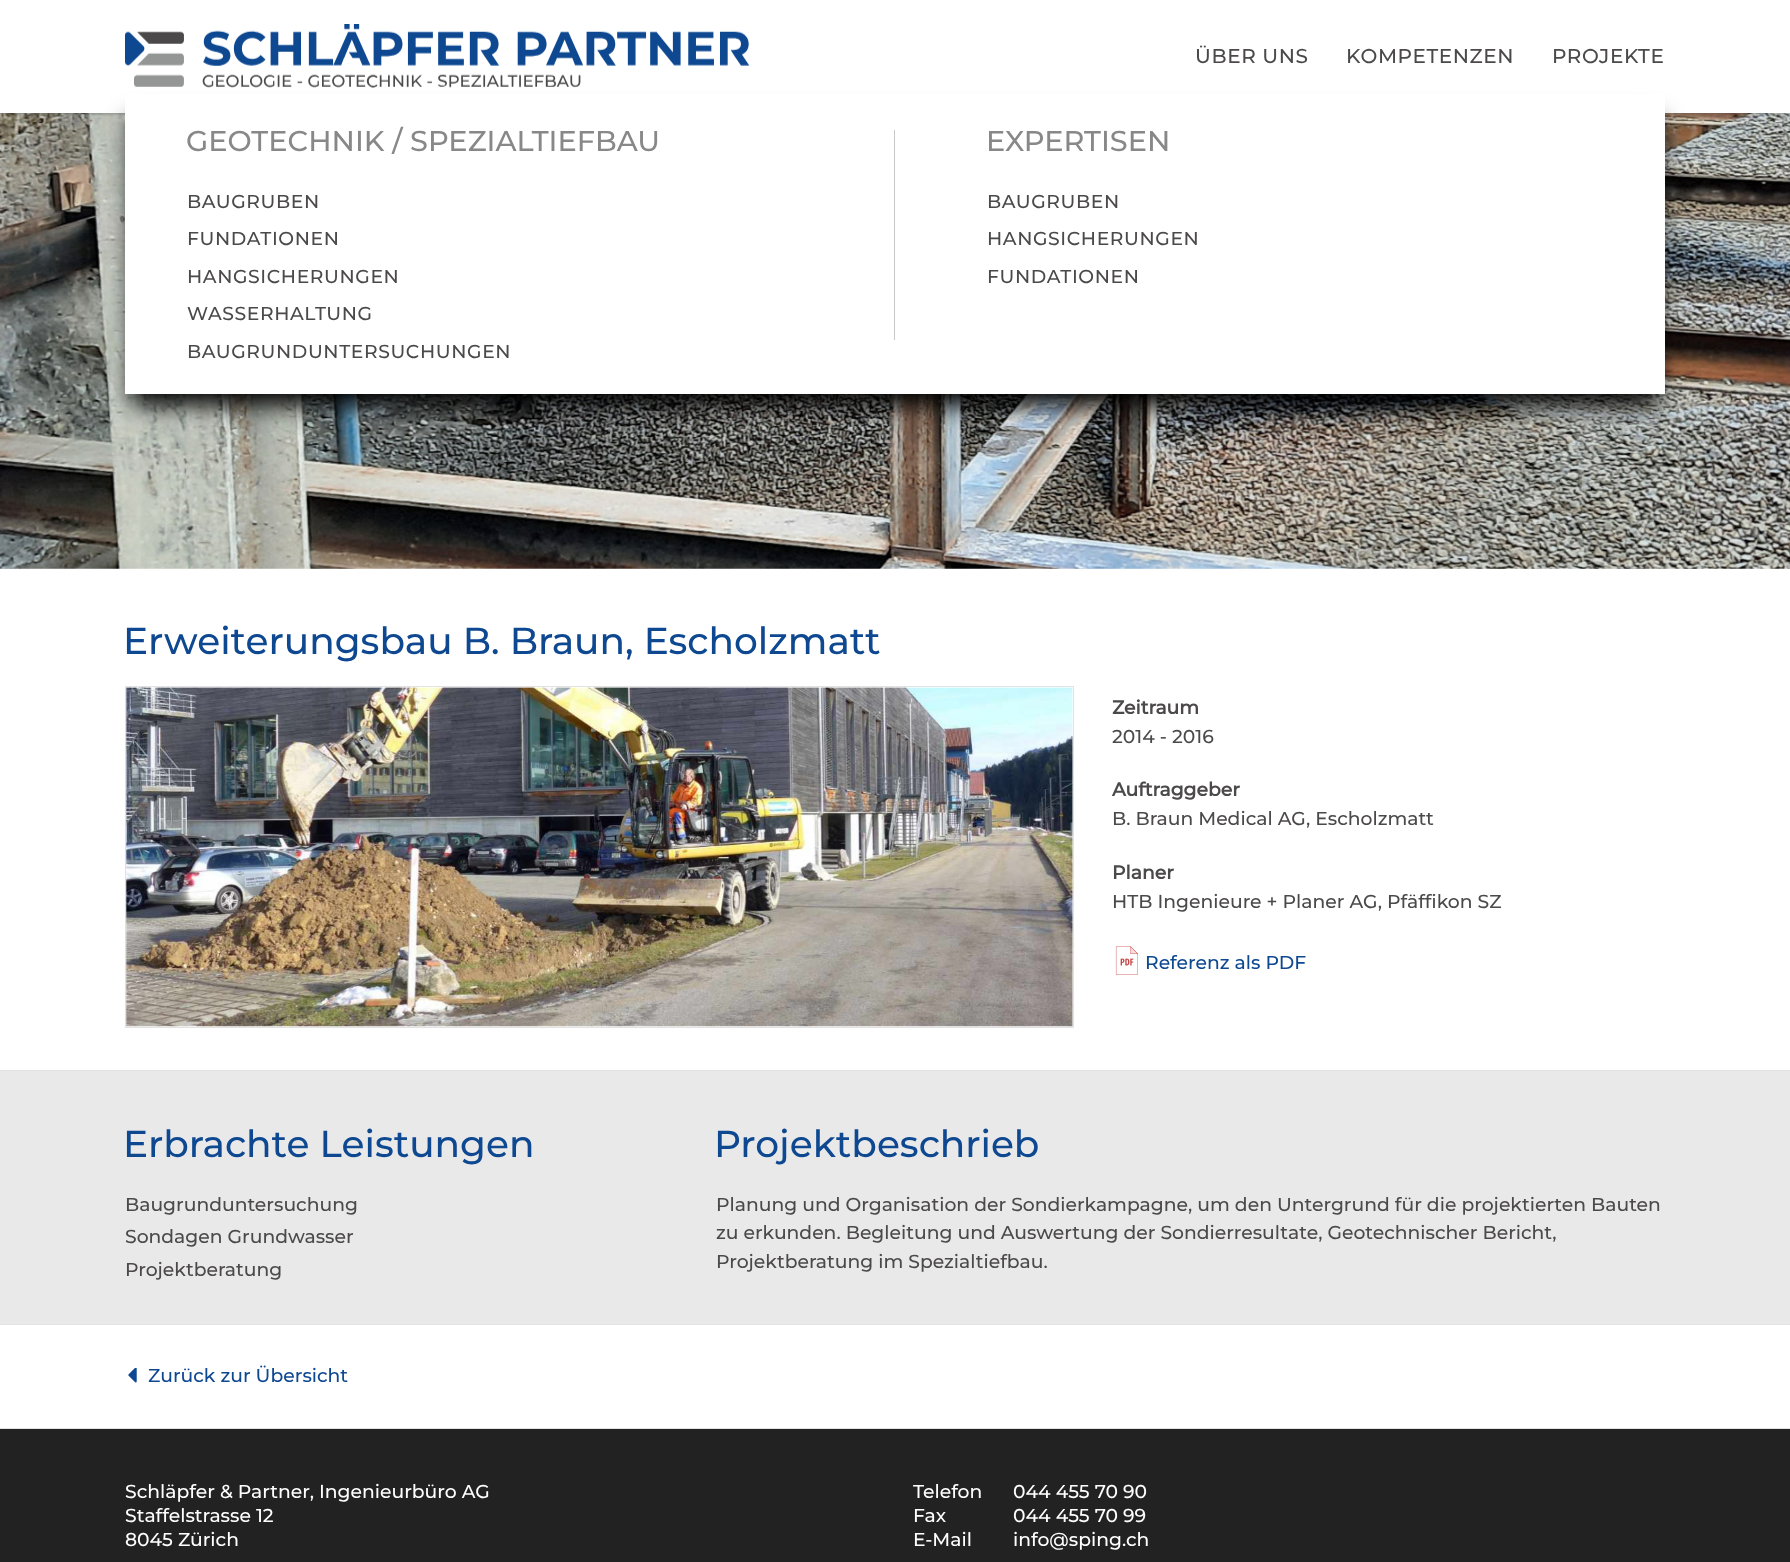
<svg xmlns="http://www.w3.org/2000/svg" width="1790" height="1562">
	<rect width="100%" height="100%" fill="#FFFFFF" />
	<image x="0" y="113" width="1790" height="456" href="assets/img2.png" />
	<rect x="3" y="8" width="1785" height="107" fill="#000000" fill-opacity="0.2" filter="blur(1px)" />
	<rect x="1" y="6" width="1789" height="107" fill="#FFFFFF" />
	<image x="125" y="24" width="625" height="64" href="assets/img1.png" />
	<g font-family="Montserrat" font-size="20" font-weight="500" letter-spacing="0.6" fill="#4B494A">
		<text x="1195" y="63">ÜBER UNS</text>
		<text x="1346" y="63">KOMPETENZEN</text>
		<text x="1552" y="63">PROJEKTE</text>
	</g>
	<rect x="131" y="119" width="1528" height="287" fill="#000000" filter="blur(12px)" />
	<rect x="125" y="94" width="1540" height="300" fill="#FFFFFF" />
	<text x="186" y="151" font-family="Montserrat" font-size="28.75" font-weight="500" fill="#888888">GEOTECHNIK / SPEZIALTIEFBAU</text>
	<g font-family="Montserrat" font-size="18.75" font-weight="500" letter-spacing="0.6" fill="#4B494A">
		<text x="187" y="208">BAUGRUBEN</text>
		<text x="187" y="245">FUNDATIONEN</text>
		<text x="187" y="283">HANGSICHERUNGEN</text>
		<text x="187" y="320">WASSERHALTUNG</text>
		<text x="187" y="358">BAUGRUNDUNTERSUCHUNGEN</text>
	</g>
	<rect x="894" y="130" width="1" height="210" fill="#C8C8C8" />
	<text x="986" y="151" font-family="Montserrat" font-size="28.75" font-weight="500" fill="#888888">EXPERTISEN</text>
	<g font-family="Montserrat" font-size="18.75" font-weight="500" letter-spacing="0.6" fill="#4B494A">
		<text x="987" y="208">BAUGRUBEN</text>
		<text x="987" y="245">HANGSICHERUNGEN</text>
		<text x="987" y="283">FUNDATIONEN</text>
	</g>
	<rect x="0" y="1070" width="1790" height="1" fill="#E2E2E2" />
	<text x="123" y="654" font-family="Montserrat" font-size="37.5" font-weight="500" fill="#0E4891">Erweiterungsbau B. Braun, Escholzmatt</text>
	<rect x="125.5" y="686.5" width="948" height="341" fill="none" stroke="#E2E2E2" />
	<image x="125" y="687" width="948" height="340" href="assets/img3.png" />
	<text x="1112" y="714" font-family="Montserrat" font-size="18.75" font-weight="700" fill="#4B494A">Zeitraum</text>
	<text x="1112" y="743" font-family="Montserrat" font-size="18.75" font-weight="500" fill="#4B494A">2014 - 2016</text>
	<text x="1112" y="796" font-family="Montserrat" font-size="18.75" font-weight="700" fill="#4B494A">Auftraggeber</text>
	<text x="1112" y="825" font-family="Montserrat" font-size="18.75" font-weight="500" fill="#4B494A">B. Braun Medical AG, Escholzmatt</text>
	<text x="1112" y="879" font-family="Montserrat" font-size="18.75" font-weight="700" fill="#4B494A">Planer</text>
	<text x="1112" y="908" font-family="Montserrat" font-size="18.75" font-weight="500" fill="#4B494A">HTB Ingenieure + Planer AG, Pfäffikon SZ</text>
	<image x="1115" y="946" width="23" height="29" href="assets/img4.png" />
	<text x="1145" y="969" font-family="Montserrat" font-size="18.75" font-weight="500" fill="#0E4891">Referenz als PDF</text>
	<rect x="0" y="1071" width="1790" height="253" fill="#E9E9E9" />
	<rect x="0" y="1324" width="1790" height="1" fill="#E2E2E2" />
	<text x="123" y="1157" font-family="Montserrat" font-size="37.5" font-weight="500" fill="#0E4891">Erbrachte Leistungen</text>
	<g font-family="Montserrat" font-size="18.75" font-weight="500" fill="#4B494A">
		<text x="125" y="1211">Baugrunduntersuchung</text>
		<text x="125" y="1243">Sondagen Grundwasser</text>
		<text x="125" y="1276">Projektberatung</text>
	</g>
	<text x="714" y="1157" font-family="Montserrat" font-size="37.5" font-weight="500" fill="#0E4891">Projektbeschrieb</text>
	<g font-family="Montserrat" font-size="18.75" font-weight="500" fill="#4B494A">
		<text x="716" y="1211">Planung und Organisation der Sondierkampagne, um den Untergrund für die projektierten Bauten</text>
		<text x="716" y="1239">zu erkunden. Begleitung und Auswertung der Sondierresultate, Geotechnischer Bericht,</text>
		<text x="716" y="1268">Projektberatung im Spezialtiefbau.</text>
	</g>
	<rect x="0" y="1428" width="1790" height="1" fill="#E2E2E2" />
	<image x="128" y="1368" width="9" height="15" href="assets/img5.png" />
	<text x="148" y="1382" font-family="Montserrat" font-size="18.75" font-weight="500" fill="#0E4891">Zurück zur Übersicht</text>
	<rect x="0" y="1429" width="1790" height="133" fill="#222222" />
	<g font-family="Montserrat" font-size="18.75" font-weight="500" fill="#FFFFFF">
		<text x="125" y="1498">Schläpfer &amp; Partner, Ingenieurbüro AG</text>
		<text x="125" y="1522">Staffelstrasse 12</text>
		<text x="125" y="1546">8045 Zürich</text>
		<text x="913" y="1498">Telefon</text>
		<text x="1013" y="1498">044 455 70 90</text>
		<text x="913" y="1522">Fax</text>
		<text x="1013" y="1522">044 455 70 99</text>
		<text x="913" y="1546">E-Mail</text>
		<text x="1013" y="1546">info@sping.ch</text>
	</g>
</svg>
